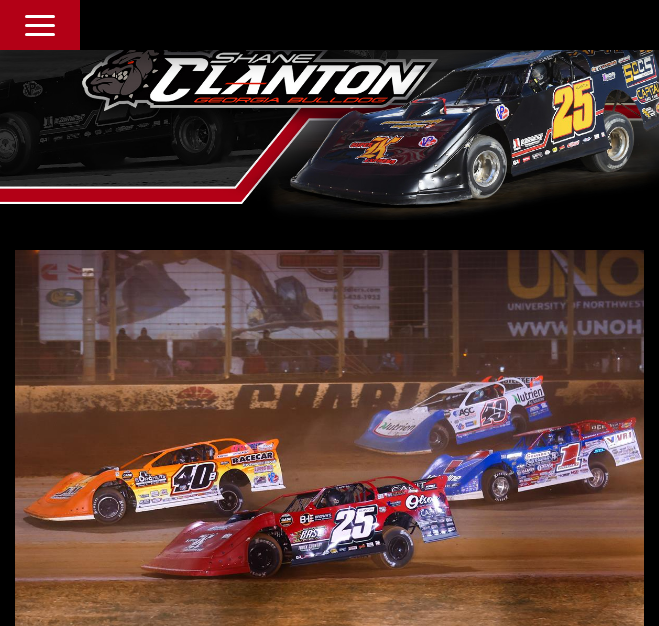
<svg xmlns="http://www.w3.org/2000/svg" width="659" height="626">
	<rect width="100%" height="100%" fill="#000000" />
	<image x="0" y="50" width="659" height="170" href="assets/img1.png" />
	<rect x="0" y="10" width="659" height="50" fill="#000000" fill-opacity="0.35" filter="blur(10px)" />
	<rect x="0" y="0" width="80" height="50" fill="#B30016" />
	<rect x="25" y="15" width="30" height="3" rx="1.5" fill="#FFFFFF" />
	<rect x="25" y="24" width="30" height="3" rx="1.5" fill="#FFFFFF" />
	<rect x="25" y="33" width="30" height="3" rx="1.5" fill="#FFFFFF" />
	<image x="15" y="250" width="629" height="376" href="assets/img2.png" />
</svg>
